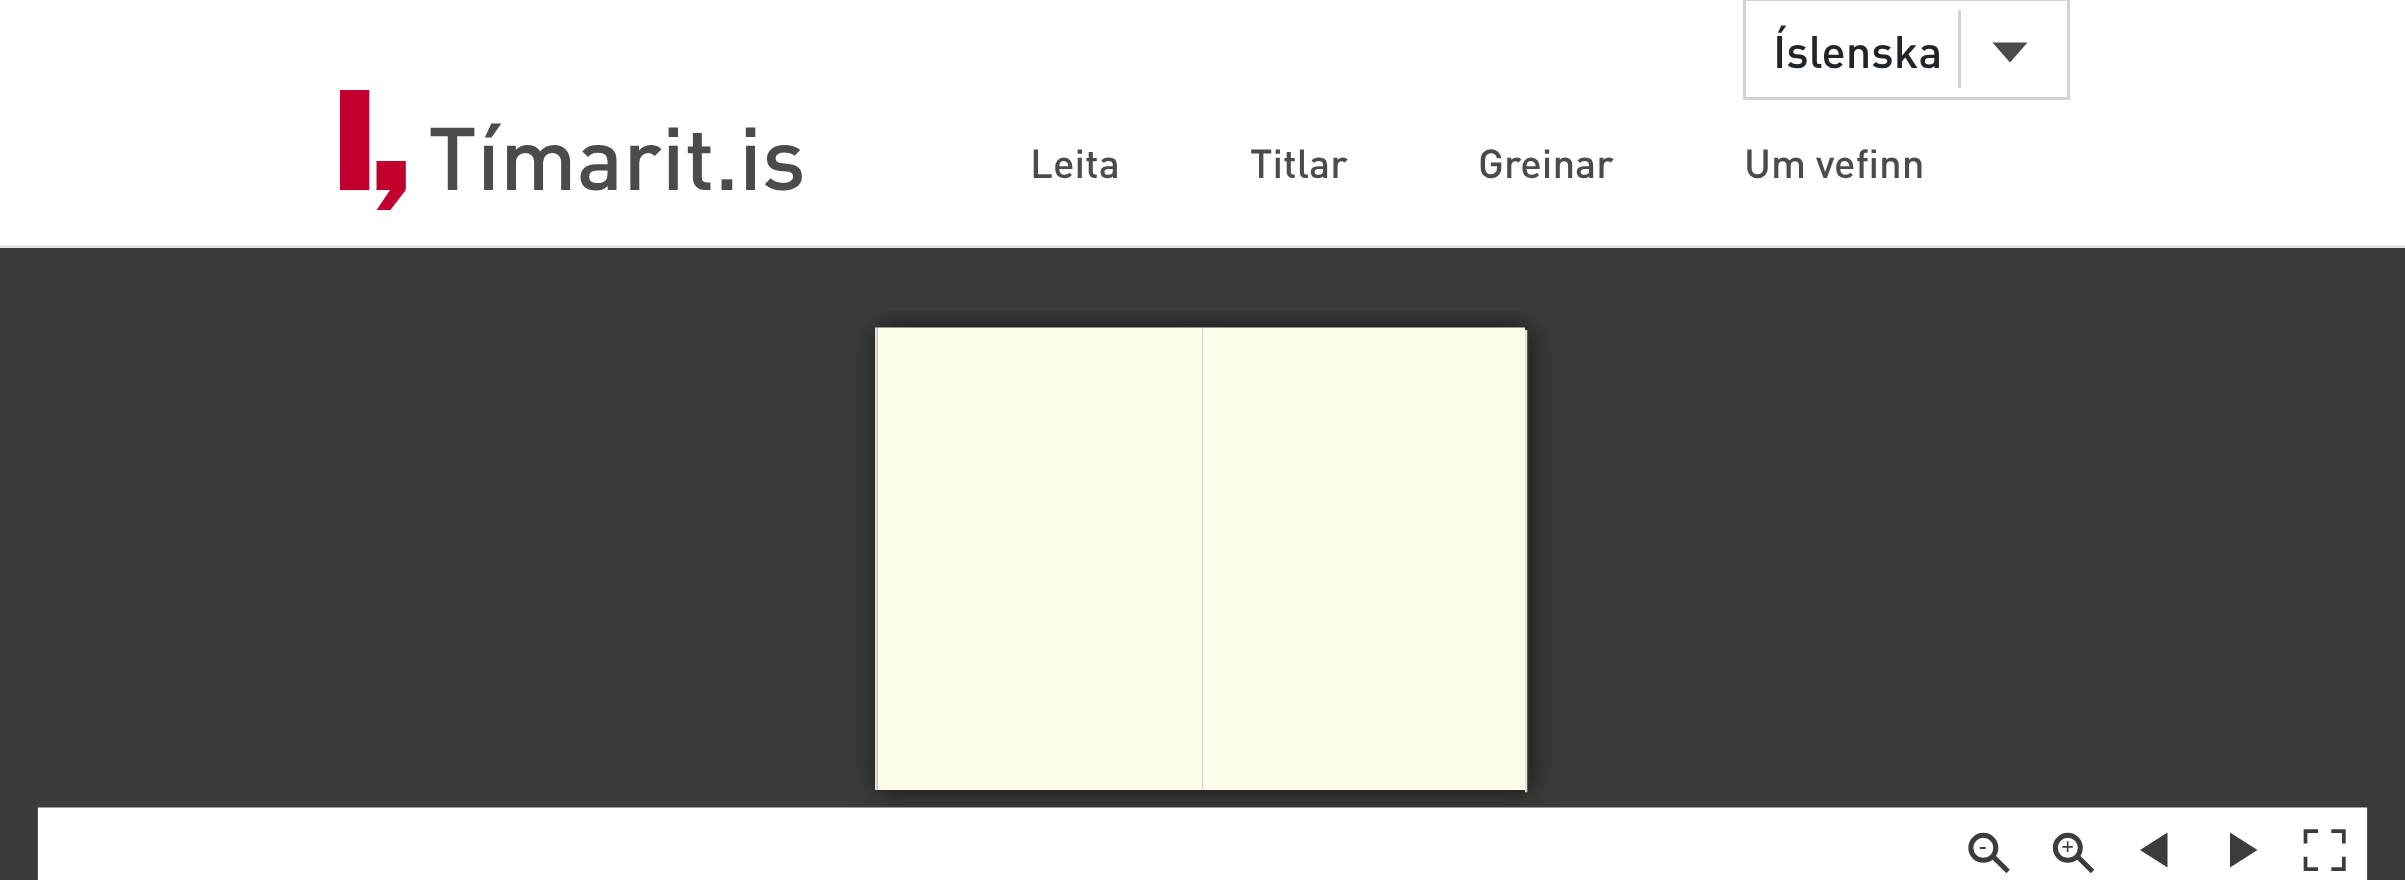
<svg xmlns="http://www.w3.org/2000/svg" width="2405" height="880">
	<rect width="100%" height="100%" fill="#FFFFFF" />
	<rect x="0" y="245" width="2405" height="3" fill="#E4E4E4" />
	<image x="340" y="90" width="66" height="120" href="assets/img1.png" />
	<text x="428" y="190" font-family="DIN" font-size="87.5" font-weight="500" fill="#4B4B4B">Tímarit.is</text>
	<rect x="1744.5" y="-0.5" width="324" height="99" fill="none" stroke="#D3D3D3" stroke-width="3" />
	<text x="1773" y="68" font-family="DIN" font-size="45" font-weight="500" fill="#212529">Íslenska</text>
	<rect x="1958" y="10" width="3" height="78" fill="#D3D3D3" />
	<path d="M1992.5 42.5H2027.5L2010 62.5Z" fill="#4B4B4B" />
	<g font-family="DIN" font-size="40" font-weight="500" fill="#4B4B4B">
		<text x="1030" y="178">Leita</text>
		<text x="1250" y="178">Titlar</text>
		<text x="1478" y="178">Greinar</text>
		<text x="1744" y="178">Um vefinn</text>
	</g>
	<rect x="0" y="248" width="2405" height="632" fill="#3A3B3B" />
	<image x="37" y="311" width="2331" height="569" href="assets/img2.png" />
</svg>
